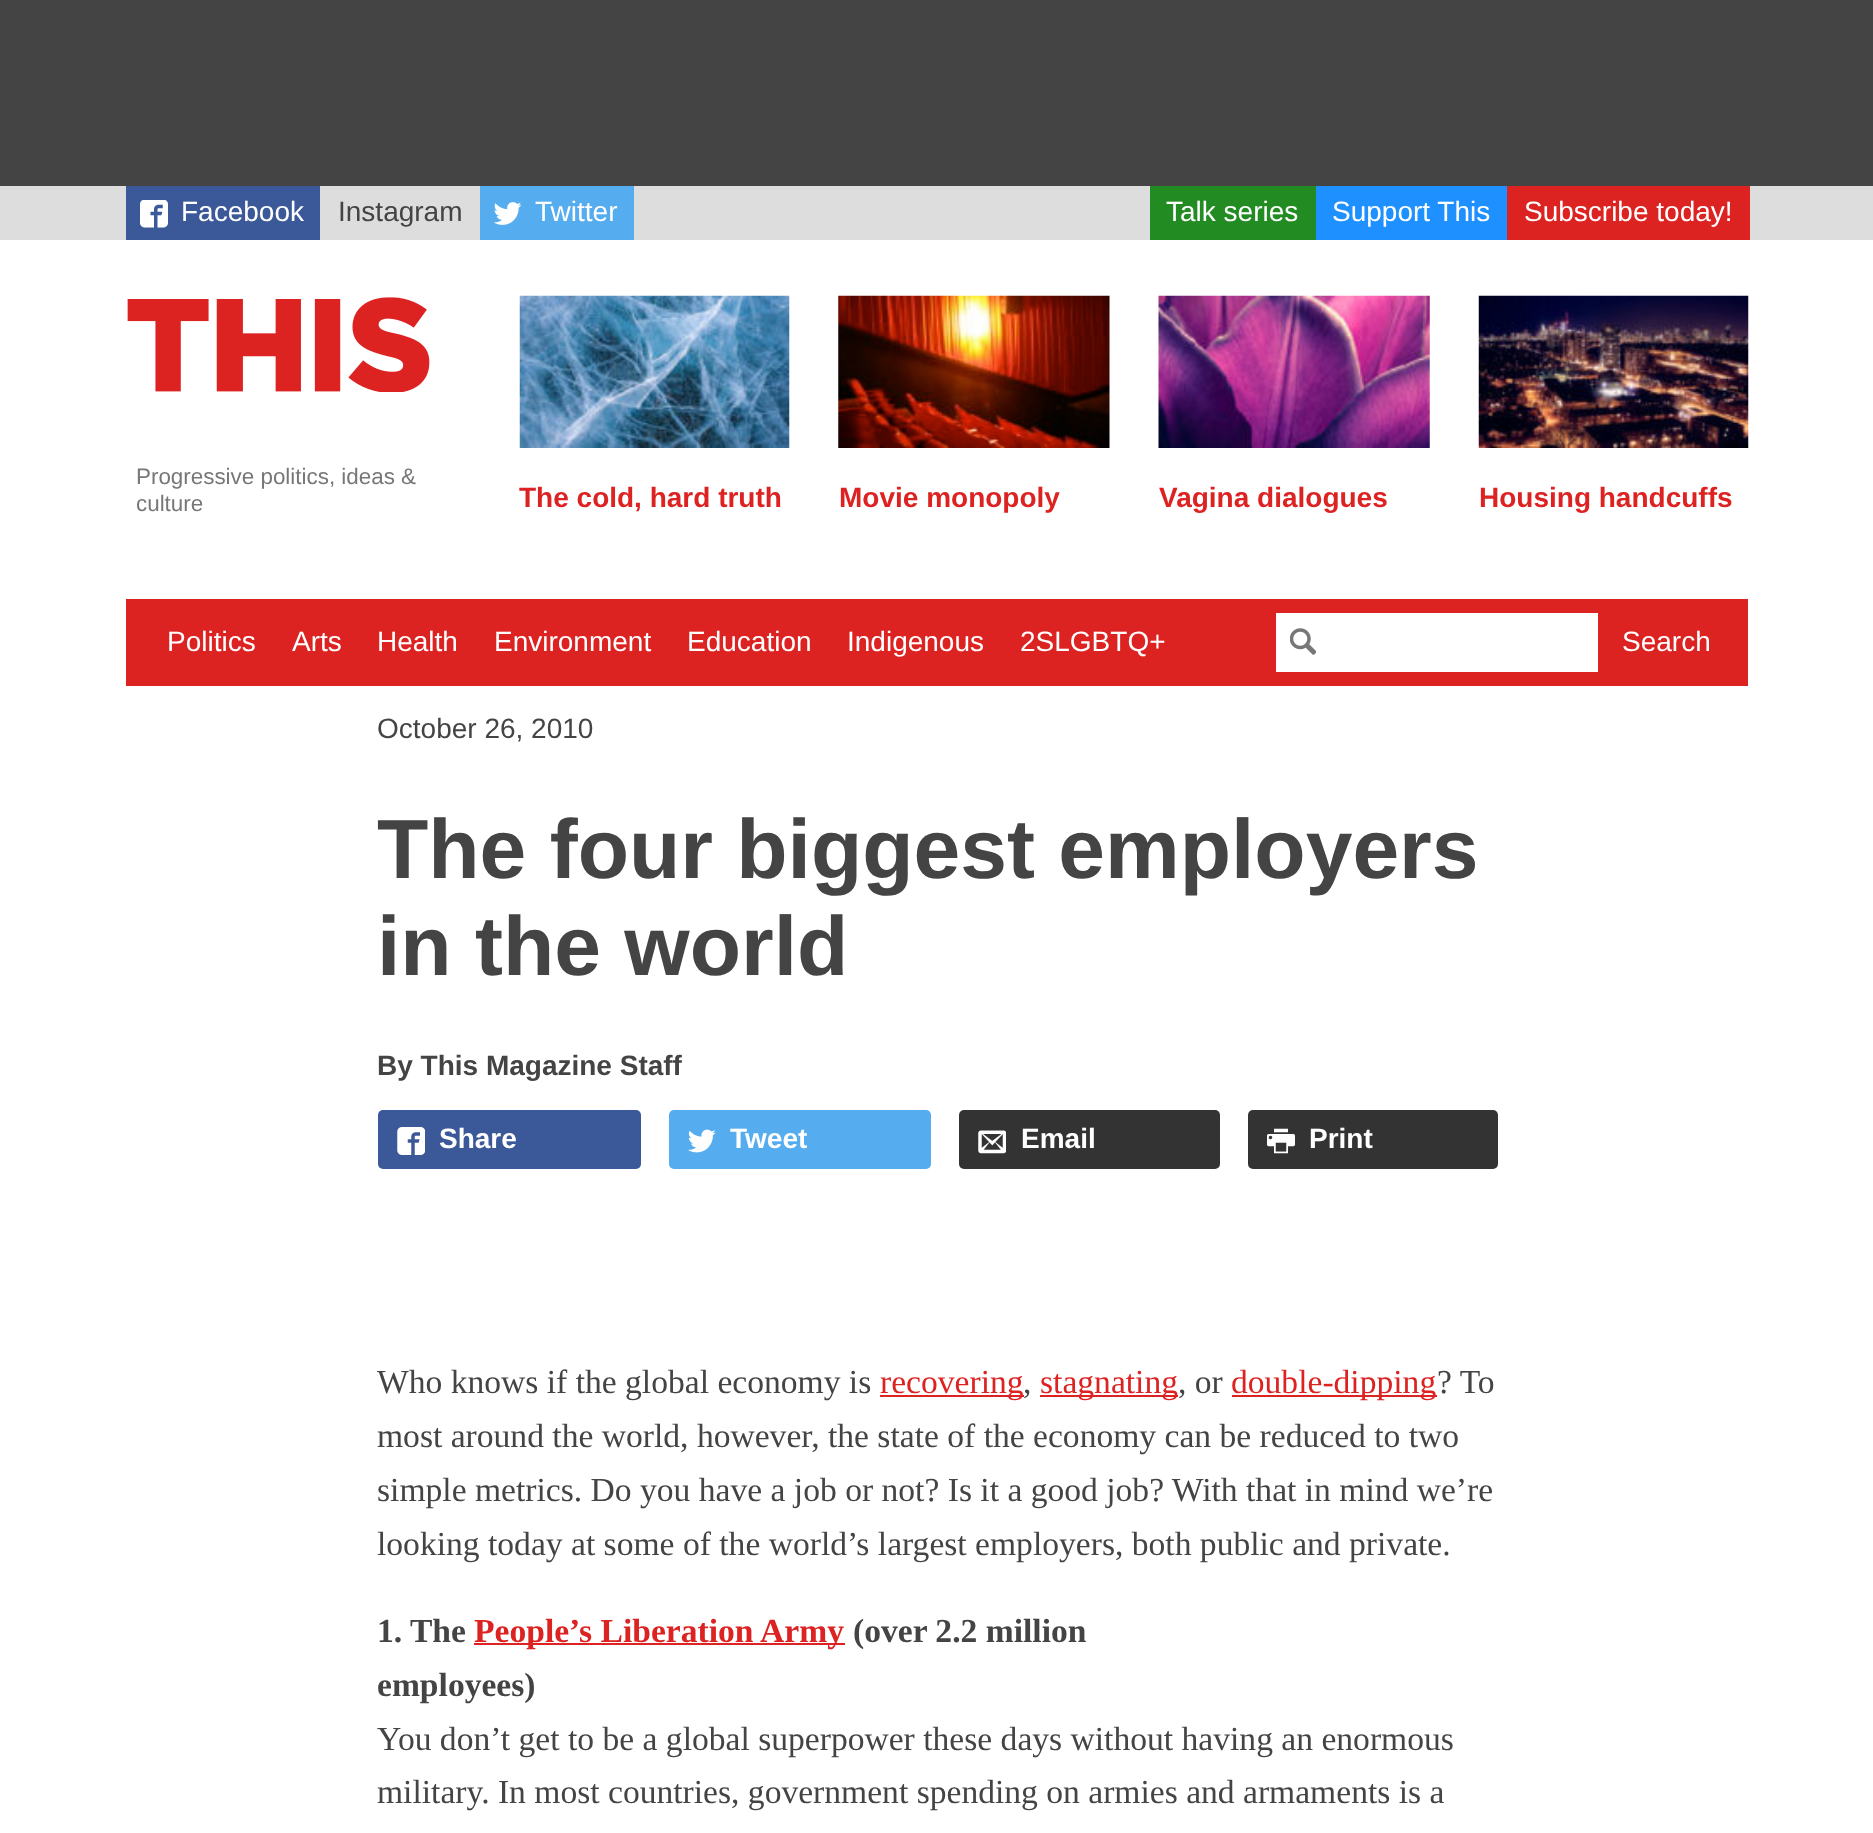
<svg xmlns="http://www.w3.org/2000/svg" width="1873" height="1833">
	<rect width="100%" height="100%" fill="#FFFFFF" />
	<rect x="0" y="0" width="1873" height="186" fill="#444444" />
	<rect x="0" y="186" width="1873" height="54" fill="#DDDDDD" />
	<rect x="126" y="186" width="194" height="54" fill="#3B5998" />
	<image x="140" y="200" width="28" height="28" href="assets/img1.png" />
	<text x="181" y="221" font-family="Liberation Sans" font-size="28" fill="#FFFFFF">Facebook</text>
	<text x="338" y="221" font-family="Liberation Sans" font-size="28" fill="#444444">Instagram</text>
	<rect x="480" y="186" width="154" height="54" fill="#55ACEE" />
	<image x="494" y="202" width="28" height="23" href="assets/img2.png" />
	<text x="535" y="221" font-family="Liberation Sans" font-size="28" fill="#FFFFFF">Twitter</text>
	<rect x="1150" y="186" width="166" height="54" fill="#228B22" />
	<text x="1166" y="221" font-family="Liberation Sans" font-size="28" fill="#FFFFFF">Talk series</text>
	<rect x="1316" y="186" width="191" height="54" fill="#1E90FF" />
	<text x="1332" y="221" font-family="Liberation Sans" font-size="28" fill="#FFFFFF">Support This</text>
	<rect x="1507" y="186" width="243" height="54" fill="#DD2222" />
	<text x="1524" y="221" font-family="Liberation Sans" font-size="28" fill="#FFFFFF">Subscribe today!</text>
	<image x="127" y="297" width="303" height="95" href="assets/img3.png" />
	<g font-family="Liberation Sans" font-size="22.4" fill="#777777">
		<text x="136" y="484">Progressive politics, ideas &amp;</text>
		<text x="136" y="511">culture</text>
	</g>
	<image x="519" y="295" width="271" height="153" href="assets/img4.png" />
	<text x="519" y="507" font-family="Liberation Sans" font-size="28" font-weight="700" fill="#DD2222">The cold, hard truth</text>
	<image x="838" y="295" width="272" height="153" href="assets/img5.png" />
	<text x="839" y="507" font-family="Liberation Sans" font-size="28" font-weight="700" fill="#DD2222">Movie monopoly</text>
	<image x="1158" y="295" width="272" height="153" href="assets/img6.png" />
	<text x="1159" y="507" font-family="Liberation Sans" font-size="28" font-weight="700" fill="#DD2222">Vagina dialogues</text>
	<image x="1478" y="295" width="271" height="153" href="assets/img7.png" />
	<text x="1479" y="507" font-family="Liberation Sans" font-size="28" font-weight="700" fill="#DD2222">Housing handcuffs</text>
	<rect x="126" y="599" width="1622" height="87" fill="#DD2222" />
	<g font-family="Liberation Sans" font-size="28" fill="#FFFFFF">
		<text x="167" y="651">Politics</text>
		<text x="292" y="651">Arts</text>
		<text x="377" y="651">Health</text>
		<text x="494" y="651">Environment</text>
		<text x="687" y="651">Education</text>
		<text x="847" y="651">Indigenous</text>
		<text x="1020" y="651">2SLGBTQ+</text>
	</g>
	<rect x="1276" y="613" width="322" height="59" fill="#FFFFFF" />
	<image x="1290" y="628" width="26" height="27" href="assets/img8.png" />
	<text x="1622" y="651" font-family="Liberation Sans" font-size="28" fill="#FFFFFF">Search</text>
	<text x="377" y="738" font-family="Liberation Sans" font-size="28" fill="#444444">October 26, 2010</text>
	<g font-family="Liberation Sans" font-size="84" font-weight="700" fill="#444444">
		<text x="377" y="878">The four biggest employers</text>
		<text x="377" y="975">in the world</text>
	</g>
	<text x="377" y="1075" font-family="Liberation Sans" font-size="28" font-weight="700" fill="#444444">By This Magazine Staff</text>
	<rect x="378" y="1110" width="263" height="59" rx="5" fill="#3B5998" />
	<image x="397" y="1127" width="28" height="28" href="assets/img9.png" />
	<text x="439" y="1148" font-family="Liberation Sans" font-size="28" font-weight="700" fill="#FFFFFF">Share</text>
	<rect x="669" y="1110" width="262" height="59" rx="5" fill="#55ACEE" />
	<image x="688" y="1129" width="28" height="24" href="assets/img10.png" />
	<text x="730" y="1148" font-family="Liberation Sans" font-size="28" font-weight="700" fill="#FFFFFF">Tweet</text>
	<rect x="959" y="1110" width="261" height="59" rx="5" fill="#333333" />
	<image x="978" y="1130" width="28" height="24" href="assets/img11.png" />
	<text x="1021" y="1148" font-family="Liberation Sans" font-size="28" font-weight="700" fill="#FFFFFF">Email</text>
	<rect x="1248" y="1110" width="250" height="59" rx="5" fill="#333333" />
	<image x="1267" y="1128" width="28" height="26" href="assets/img12.png" />
	<text x="1309" y="1148" font-family="Liberation Sans" font-size="28" font-weight="700" fill="#FFFFFF">Print</text>
	<text x="377" y="1393" font-family="Liberation Serif" font-size="33.6" fill="#444444">Who knows if the global economy is</text>
	<rect x="880" y="1395" width="144" height="2" fill="#DD2222" />
	<text x="880" y="1393" font-family="Liberation Serif" font-size="33.6" fill="#DD2222">recovering</text>
	<text x="1023" y="1393" font-family="Liberation Serif" font-size="33.6" fill="#444444">,</text>
	<rect x="1040" y="1395" width="138" height="2" fill="#DD2222" />
	<text x="1040" y="1393" font-family="Liberation Serif" font-size="33.6" fill="#DD2222">stagnating</text>
	<text x="1178" y="1393" font-family="Liberation Serif" font-size="33.6" fill="#444444">, or</text>
	<rect x="1232" y="1395" width="205" height="2" fill="#DD2222" />
	<text x="1231" y="1393" font-family="Liberation Serif" font-size="33.6" fill="#DD2222">double-dipping</text>
	<g font-family="Liberation Serif" font-size="33.6" fill="#444444">
		<text x="1437" y="1393">? To</text>
		<text x="377" y="1447">most around the world, however, the state of the economy can be reduced to two</text>
		<text x="377" y="1501">simple metrics. Do you have a job or not? Is it a good job? With that in mind we’re</text>
		<text x="377" y="1555">looking today at some of the world’s largest employers, both public and private.</text>
	</g>
	<text x="377" y="1642" font-family="Liberation Serif" font-size="33.6" font-weight="700" fill="#444444">1. The</text>
	<rect x="474" y="1643" width="371" height="2" fill="#DD2222" />
	<text x="474" y="1642" font-family="Liberation Serif" font-size="33.6" font-weight="700" fill="#DD2222">People’s Liberation Army</text>
	<g font-family="Liberation Serif" font-size="33.6" font-weight="700" fill="#444444">
		<text x="853" y="1642">(over 2.2 million</text>
		<text x="377" y="1696">employees)</text>
	</g>
	<g font-family="Liberation Serif" font-size="33.6" fill="#444444">
		<text x="377" y="1750">You don’t get to be a global superpower these days without having an enormous</text>
		<text x="377" y="1803">military. In most countries, government spending on armies and armaments is a</text>
	</g>
</svg>
